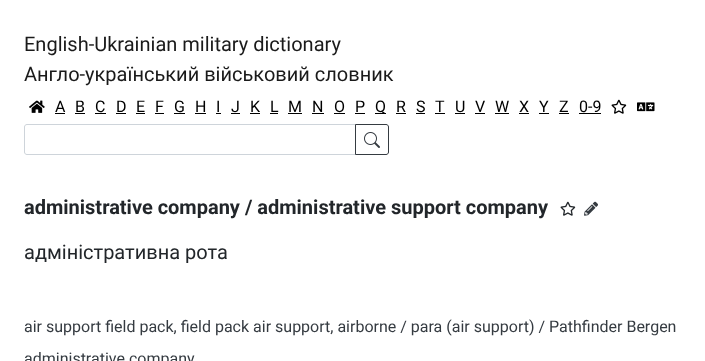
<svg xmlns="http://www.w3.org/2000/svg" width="705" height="361">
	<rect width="100%" height="100%" fill="#FFFFFF" />
	<g font-family="Roboto" font-size="20" fill="#1A1A1A">
		<text x="24" y="51">English-Ukrainian military dictionary</text>
		<text x="24" y="81">Англо-український військовий словник</text>
	</g>
	<image x="29" y="100" width="16" height="13" href="assets/img1.png" />
	<text x="55" y="112" font-family="Roboto" font-size="16" fill="#000000">A</text>
	<rect x="55" y="113" width="10" height="1" fill="#000000" />
	<text x="75" y="112" font-family="Roboto" font-size="16" fill="#000000">B</text>
	<rect x="75" y="113" width="10" height="1" fill="#000000" />
	<text x="95" y="112" font-family="Roboto" font-size="16" fill="#000000">C</text>
	<rect x="95" y="113" width="11" height="1" fill="#000000" />
	<text x="116" y="112" font-family="Roboto" font-size="16" fill="#000000">D</text>
	<rect x="116" y="113" width="10" height="1" fill="#000000" />
	<text x="136" y="112" font-family="Roboto" font-size="16" fill="#000000">E</text>
	<rect x="136" y="113" width="9" height="1" fill="#000000" />
	<text x="155" y="112" font-family="Roboto" font-size="16" fill="#000000">F</text>
	<rect x="155" y="113" width="9" height="1" fill="#000000" />
	<text x="174" y="112" font-family="Roboto" font-size="16" fill="#000000">G</text>
	<rect x="174" y="113" width="11" height="1" fill="#000000" />
	<text x="195" y="112" font-family="Roboto" font-size="16" fill="#000000">H</text>
	<rect x="195" y="113" width="11" height="1" fill="#000000" />
	<text x="216" y="112" font-family="Roboto" font-size="16" fill="#000000">I</text>
	<rect x="216" y="113" width="5" height="1" fill="#000000" />
	<text x="231" y="112" font-family="Roboto" font-size="16" fill="#000000">J</text>
	<rect x="231" y="113" width="9" height="1" fill="#000000" />
	<text x="250" y="112" font-family="Roboto" font-size="16" fill="#000000">K</text>
	<rect x="250" y="113" width="10" height="1" fill="#000000" />
	<text x="270" y="112" font-family="Roboto" font-size="16" fill="#000000">L</text>
	<rect x="270" y="113" width="8" height="1" fill="#000000" />
	<text x="288" y="112" font-family="Roboto" font-size="16" fill="#000000">M</text>
	<rect x="288" y="113" width="14" height="1" fill="#000000" />
	<text x="312" y="112" font-family="Roboto" font-size="16" fill="#000000">N</text>
	<rect x="312" y="113" width="12" height="1" fill="#000000" />
	<text x="334" y="112" font-family="Roboto" font-size="16" fill="#000000">O</text>
	<rect x="334" y="113" width="11" height="1" fill="#000000" />
	<text x="355" y="112" font-family="Roboto" font-size="16" fill="#000000">P</text>
	<rect x="355" y="113" width="10" height="1" fill="#000000" />
	<rect x="375" y="113" width="11" height="1" fill="#000000" />
	<g font-family="Roboto" font-size="16" fill="#000000">
		<text x="375" y="112">Q</text>
		<text x="396" y="112">R</text>
	</g>
	<rect x="396" y="113" width="10" height="1" fill="#000000" />
	<text x="416" y="112" font-family="Roboto" font-size="16" fill="#000000">S</text>
	<rect x="416" y="113" width="9" height="1" fill="#000000" />
	<text x="435" y="112" font-family="Roboto" font-size="16" fill="#000000">T</text>
	<rect x="435" y="113" width="10" height="1" fill="#000000" />
	<text x="455" y="112" font-family="Roboto" font-size="16" fill="#000000">U</text>
	<rect x="455" y="113" width="10" height="1" fill="#000000" />
	<text x="475" y="112" font-family="Roboto" font-size="16" fill="#000000">V</text>
	<rect x="475" y="113" width="10" height="1" fill="#000000" />
	<text x="495" y="112" font-family="Roboto" font-size="16" fill="#000000">W</text>
	<rect x="495" y="113" width="14" height="1" fill="#000000" />
	<text x="519" y="112" font-family="Roboto" font-size="16" fill="#000000">X</text>
	<rect x="519" y="113" width="10" height="1" fill="#000000" />
	<text x="539" y="112" font-family="Roboto" font-size="16" fill="#000000">Y</text>
	<rect x="539" y="113" width="10" height="1" fill="#000000" />
	<text x="559" y="112" font-family="Roboto" font-size="16" fill="#000000">Z</text>
	<rect x="559" y="113" width="10" height="1" fill="#000000" />
	<text x="579" y="112" font-family="Roboto" font-size="16" fill="#000000">0-9</text>
	<rect x="579" y="113" width="22" height="1" fill="#000000" />
	<image x="611" y="99" width="16" height="15" href="assets/img2.png" />
	<image x="637" y="102" width="18" height="10" href="assets/img3.png" />
	<path d="M27 124.5H355.5V154.5H27C25.5 154.5 24.5 153.5 24.5 152V127C24.5 125.5 25.5 124.5 27 124.5Z" fill="none" stroke="#CED4DA" />
	<path d="M355.5 124.5H386C387.5 124.5 388.5 125.5 388.5 127V152C388.5 153.5 387.5 154.5 386 154.5H355.5Z" fill="none" stroke="#353B41" />
	<image x="364" y="132" width="16" height="16" href="assets/img4.png" />
	<text x="24" y="214" font-family="Roboto" font-size="20" font-weight="700" fill="#22262A">administrative company / administrative support company</text>
	<image x="560" y="201" width="16" height="15" href="assets/img5.png" />
	<image x="584" y="201" width="14" height="15" href="assets/img6.png" />
	<text x="24" y="259" font-family="Roboto" font-size="20" fill="#22262A">адміністративна рота</text>
	<g font-family="Roboto" font-size="16" fill="#353B41">
		<text x="24" y="332">air support field pack, field pack air support, airborne / para (air support) / Pathfinder Bergen</text>
		<text x="24" y="364">administrative company</text>
	</g>
</svg>
